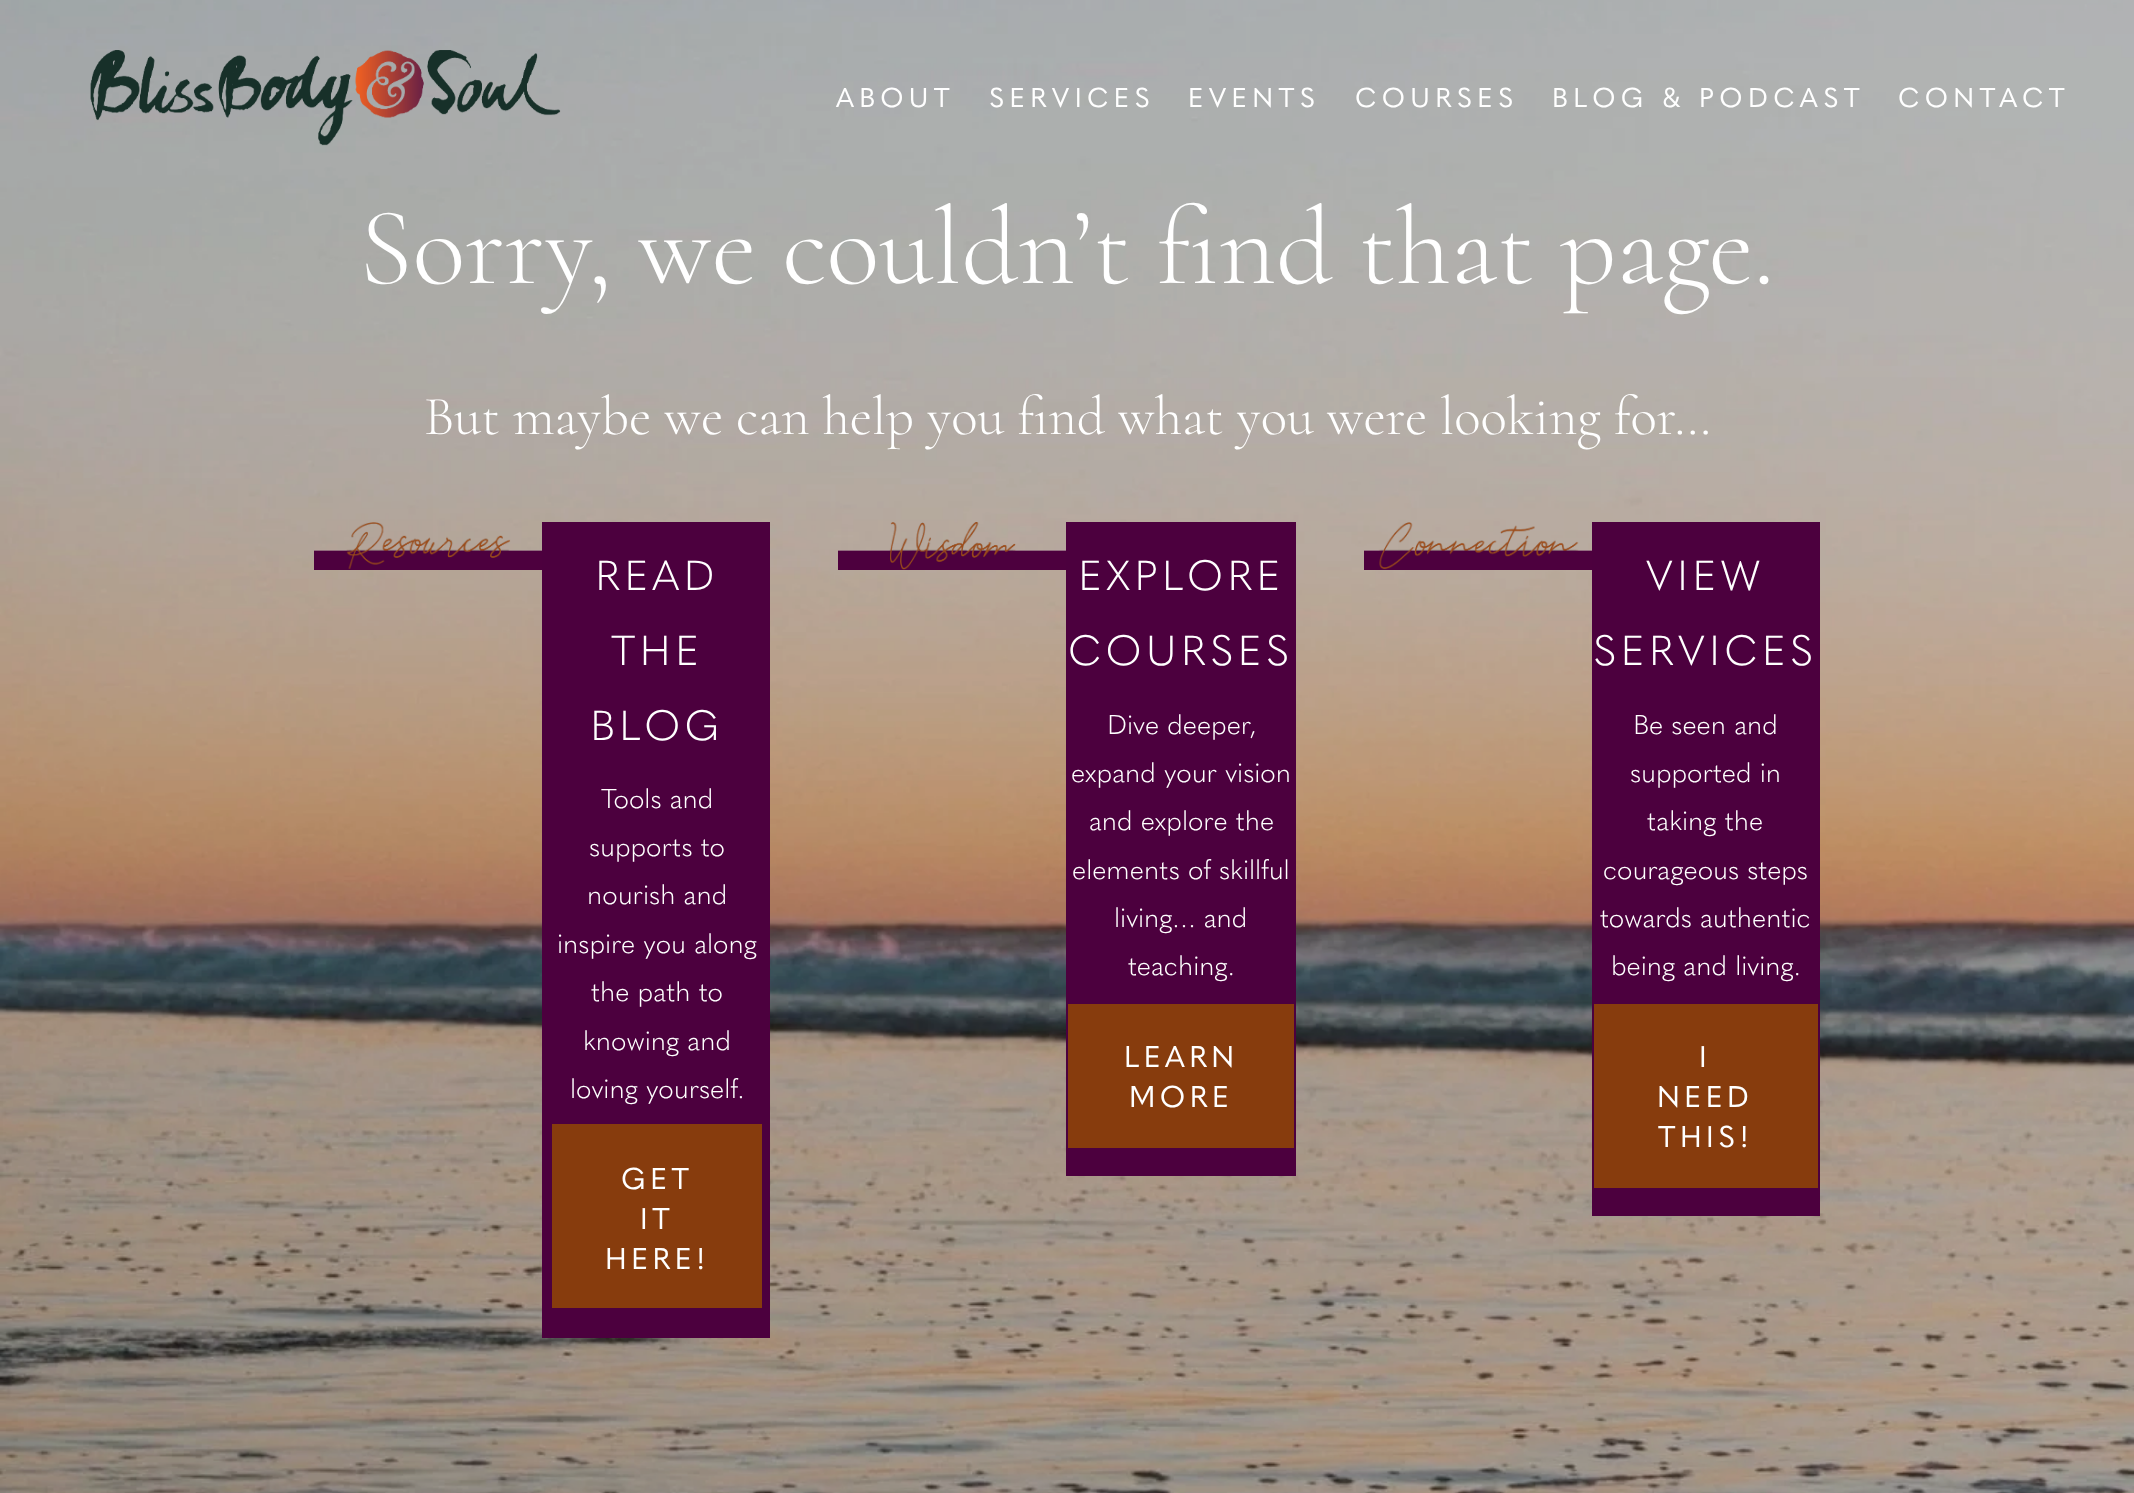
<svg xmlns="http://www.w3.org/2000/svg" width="2134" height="1493">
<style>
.a{font:26.9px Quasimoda;letter-spacing:5.4px;fill:#fff}
.b{font:300 110.4px Cormorant;fill:#fff}
.c{font:300 55.05px Cormorant;fill:#fff}
.d{font:300 41.5px Quasimoda;letter-spacing:4.25px;fill:#fff}
.e{font:300 26.9px Quasimoda;fill:#fff}
.f{font:29.5px Quasimoda;letter-spacing:4.5px;fill:#fff}
</style>
<rect width="100%" height="100%" fill="#fff"/>
<image href="2.png" x="0" y="0" width="2134" height="1493"/>
<image href="1.png" x="90" y="50" width="471" height="96"/>
<image href="3.png" x="314" y="522" width="228" height="48"/>
<path fill="#4c003e" d="M542 522h228v816H542z"/>
<path fill="#873c0d" d="M552 1124h210v184H552z"/>
<image href="4.png" x="838" y="522" width="228" height="48"/>
<path fill="#4c003e" d="M1066 522h230v654H1066z"/>
<path fill="#873c0d" d="M1068 1004h226v144H1068z"/>
<image href="5.png" x="1364" y="522" width="228" height="48"/>
<path fill="#4c003e" d="M1592 522h228v694H1592z"/>
<path fill="#873c0d" d="M1594 1004h224v184H1594z"/>
<text class="a" x="836" y="107">ABOUT</text>
<text class="a" x="989" y="107">SERVICES</text>
<text class="a" x="1188" y="107">EVENTS</text>
<text class="a" x="1355" y="107">COURSES</text>
<text class="a" x="1552" y="107">BLOG &amp; PODCAST</text>
<text class="a" x="1898" y="107">CONTACT</text>
<text class="b" x="359" y="283">Sorry, we couldn’t find that page.</text>
<text class="c" x="424" y="434">But maybe we can help you find what you were looking for…</text>
<text class="d" x="595" y="590">READ</text>
<text class="d" x="611" y="665">THE</text>
<text class="d" x="590" y="740">BLOG</text>
<text class="e" x="601" y="808">Tools and</text>
<text class="e" x="589" y="856">supports to</text>
<text class="e" x="587" y="904">nourish and</text>
<text class="e" x="557" y="953">inspire you along</text>
<text class="e" x="591" y="1001">the path to</text>
<text class="e" x="583" y="1050">knowing and</text>
<text class="e" x="570" y="1098">loving yourself.</text>
<text class="f" x="621" y="1189">GET</text>
<text class="f" x="640" y="1229">IT</text>
<text class="f" x="605" y="1269">HERE!</text>
<text class="d" x="1078" y="590">EXPLORE</text>
<text class="d" x="1068" y="665">COURSES</text>
<text class="e" x="1107" y="734">Dive deeper,</text>
<text class="e" x="1071" y="782">expand your vision</text>
<text class="e" x="1089" y="830">and explore the</text>
<text class="e" x="1072" y="879">elements of skillful</text>
<text class="e" x="1114" y="927">living… and</text>
<text class="e" x="1128" y="975">teaching.</text>
<text class="f" x="1124" y="1067">LEARN</text>
<text class="f" x="1129" y="1107">MORE</text>
<text class="d" x="1646" y="590">VIEW</text>
<text class="d" x="1593" y="665">SERVICES</text>
<text class="e" x="1633" y="734">Be seen and</text>
<text class="e" x="1630" y="782">supported in</text>
<text class="e" x="1647" y="830">taking the</text>
<text class="e" x="1603" y="879">courageous steps</text>
<text class="e" x="1600" y="927">towards authentic</text>
<text class="e" x="1611" y="975">being and living.</text>
<text class="f" x="1699" y="1067">I</text>
<text class="f" x="1657" y="1107">NEED</text>
<text class="f" x="1658" y="1147">THIS!</text>
</svg>
